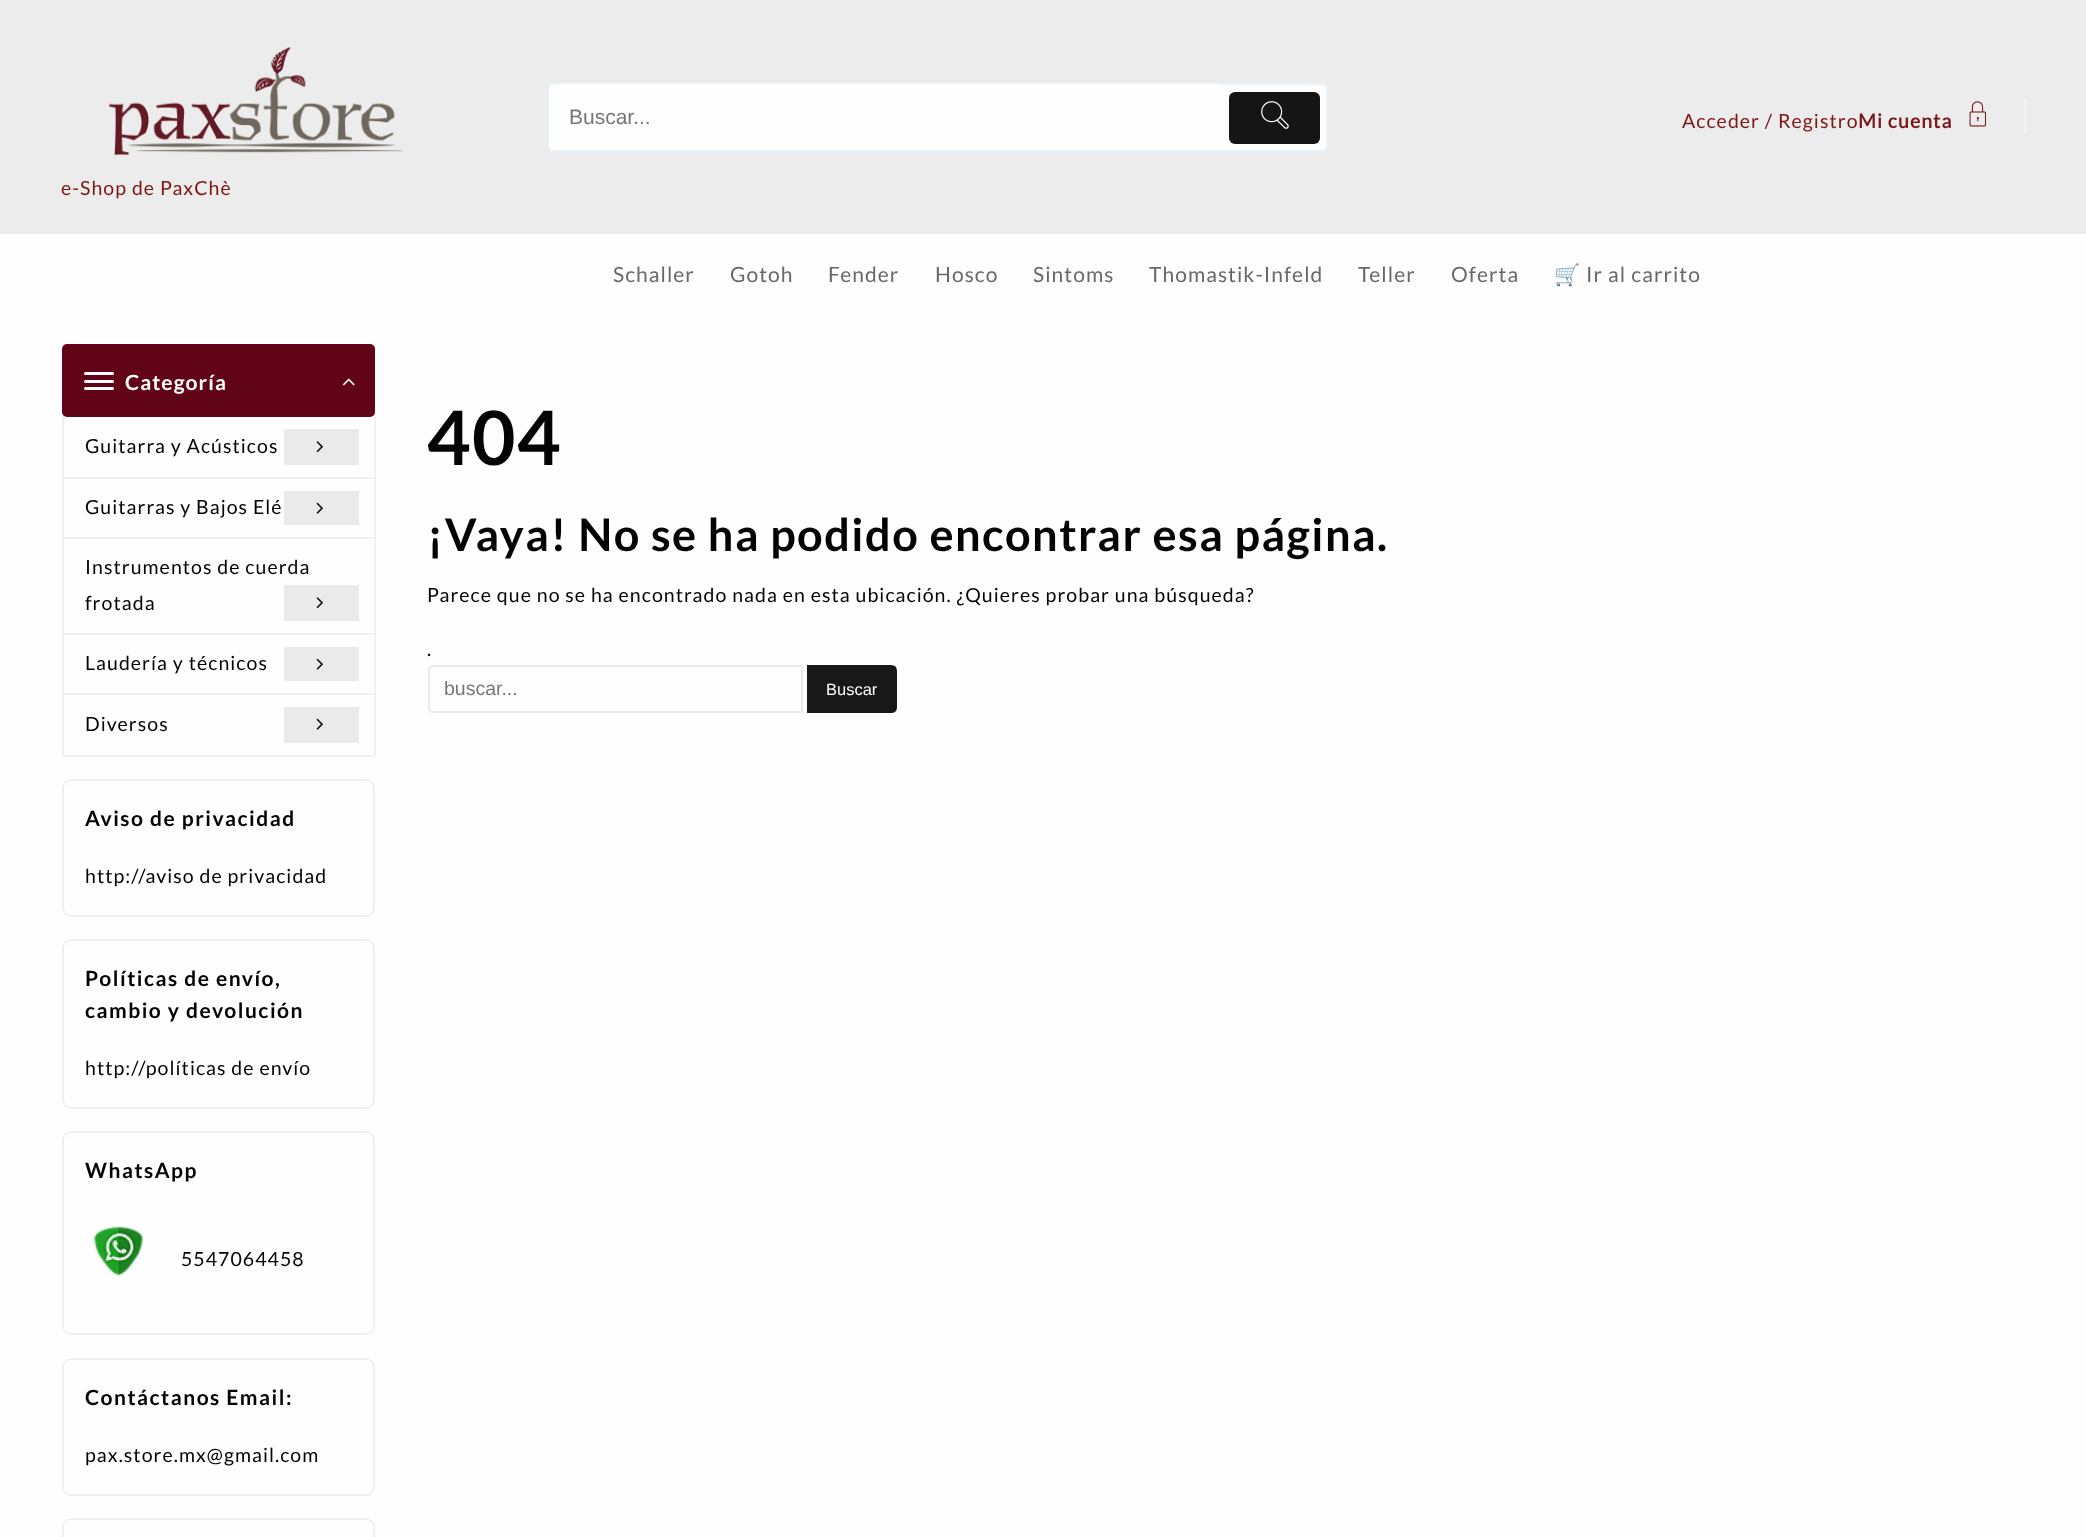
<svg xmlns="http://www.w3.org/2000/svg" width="2086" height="1537">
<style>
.a{font:21px Liberation Sans;fill:#777}
.b{font:19.5px Lato;letter-spacing:1.05px;fill:#7c1616}
.c{font:bold 19.5px Lato;letter-spacing:1.05px;fill:#7c1616}
.d{font:21px Lato;letter-spacing:1.05px;fill:#686868}
.e{font:21px Noto Color Emoji;letter-spacing:1.05px;fill:#686868}
.f{font:bold 21px 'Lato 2';letter-spacing:1.05px;fill:#fefefe}
.g{font:19.5px Lato;letter-spacing:1.05px;fill:#040404}
.h{font:bold 21px 'Lato 2';letter-spacing:1.5px;fill:#040404}
.i{font:bold 75px 'Lato 2';letter-spacing:1.5px;fill:#040404}
.j{font:bold 45px 'Lato 2';letter-spacing:1.5px;fill:#040404}
.k{font:19.5px Liberation Sans;fill:#777}
.l{font:16.5px Liberation Sans;fill:#fefefe}
</style>
<rect width="100%" height="100%" fill="#fefefe"/>
<path fill="#edeced" d="M0 0h2086v234H0z"/>
<rect fill="#fefefe" stroke="#e7f4fe" stroke-width="2" x="549" y="84" width="778" height="67" rx="5"/>
<rect fill="#fefefe" x="549" y="84" width="674" height="66" rx="6"/>
<rect fill="#151515" x="1229" y="92" width="91" height="52" rx="6"/>
<image href="1.png" x="1261" y="101" width="28" height="28"/>
<image href="2.png" x="1969" y="101" width="18" height="26"/>
<path fill="#f2f2f2" d="M2024 98h2v36H2024z"/>
<image href="3.png" x="109" y="47" width="294" height="109"/>
<rect fill="#620417" x="62" y="344" width="313" height="73" rx="5"/>
<rect fill="#fefefe" x="84" y="372" width="30" height="3" rx="1.5"/>
<rect fill="#fefefe" x="84" y="380" width="30" height="3" rx="1.5"/>
<rect fill="#fefefe" x="84" y="387" width="30" height="3" rx="1.5"/>
<image href="4.png" x="342" y="378" width="13" height="8"/>
<path fill="#f0f0f1" d="M374 417h2v339H374z"/>
<path fill="#f0f0f1" d="M62 755h313v2H62z"/>
<path fill="#f0f0f1" d="M62 417h2v339H62z"/>
<path fill="#f0f0f1" d="M63 477h311v2H63z"/>
<path fill="#eaeaea" d="M284 429h75v36H284z"/>
<image href="5.png" x="316" y="441" width="7" height="12"/>
<path fill="#f0f0f1" d="M63 537h311v2H63z"/>
<path fill="#eaeaea" d="M284 491h75v34H284z"/>
<image href="6.png" x="316" y="502" width="7" height="12"/>
<path fill="#f0f0f1" d="M63 633h311v2H63z"/>
<path fill="#eaeaea" d="M284 585h75v36H284z"/>
<image href="5.png" x="316" y="597" width="7" height="12"/>
<path fill="#f0f0f1" d="M63 693h311v2H63z"/>
<path fill="#eaeaea" d="M284 647h75v34H284z"/>
<image href="6.png" x="316" y="658" width="7" height="12"/>
<path fill="#eaeaea" d="M284 707h75v36H284z"/>
<image href="6.png" x="316" y="718" width="7" height="12"/>
<rect fill="none" stroke="#f0f0f1" stroke-width="2" x="63" y="780" width="311" height="136" rx="8"/>
<rect fill="none" stroke="#f0f0f1" stroke-width="2" x="63" y="940" width="311" height="168" rx="8"/>
<rect fill="none" stroke="#f0f0f1" stroke-width="2" x="63" y="1132" width="311" height="202" rx="8"/>
<image href="7.png" x="94" y="1226" width="49" height="50"/>
<rect fill="none" stroke="#f0f0f1" stroke-width="2" x="63" y="1359" width="311" height="136" rx="8"/>
<rect fill="none" stroke="#f0f0f1" stroke-width="2" x="63" y="1519" width="311" height="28" rx="8"/>
<path fill="none" stroke="#eaeaea" stroke-width="2" d="M433 666h369v46h-369c-2 0-4-2-4-4v-38c0-2 2-4 4-4z"/>
<path fill="#181819" stroke="#181819" stroke-width="2" d="M808 666h83c3 0 5 2 5 5v36c0 3-2 5-5 5h-83z"/>
<text class="a" x="569" y="124">Buscar...</text>
<text class="b" x="1682" y="128">Acceder / Registro</text>
<text class="c" x="1858" y="128">Mi cuenta</text>
<text class="b" x="61" y="195">e-Shop de PaxChè</text>
<text class="d" x="613" y="282">Schaller</text>
<text class="d" x="730" y="282">Gotoh</text>
<text class="d" x="828" y="282">Fender</text>
<text class="d" x="935" y="282">Hosco</text>
<text class="d" x="1033" y="282">Sintoms</text>
<text class="d" x="1149" y="282">Thomastik-Infeld</text>
<text class="d" x="1358" y="282">Teller</text>
<text class="d" x="1451" y="282">Oferta</text>
<text class="e" x="1554" y="282">🛒</text>
<text class="d" x="1586" y="282">Ir al carrito</text>
<text class="f" x="125" y="390">Categoría</text>
<text class="g" x="85" y="453">Guitarra y Acústicos</text>
<text class="g" x="85" y="514">Guitarras y Bajos Elé</text>
<text class="g" x="85" y="574">Instrumentos de cuerda</text>
<text class="g" x="85" y="610">frotada</text>
<text class="g" x="85" y="670">Laudería y técnicos</text>
<text class="g" x="85" y="731">Diversos</text>
<text class="h" x="85" y="826">Aviso de privacidad</text>
<text class="g" x="85" y="883">http://aviso de privacidad</text>
<text class="h" x="85" y="986">Políticas de envío,</text>
<text class="h" x="85" y="1018">cambio y devolución</text>
<text class="g" x="85" y="1075">http://políticas de envío</text>
<text class="h" x="85" y="1178">WhatsApp</text>
<text class="g" x="181" y="1266">5547064458</text>
<text class="h" x="85" y="1405">Contáctanos Email:</text>
<text class="g" x="85" y="1462">pax.store.mx@gmail.com</text>
<text class="i" x="427" y="465">404</text>
<text class="j" x="427" y="551">¡Vaya! No se ha podido encontrar esa página.</text>
<text class="g" x="427" y="602">Parece que no se ha encontrado nada en esta ubicación. ¿Quieres probar una búsqueda?</text>
<text class="g" x="427" y="656">.</text>
<text class="k" x="444" y="695">buscar...</text>
<text class="l" x="826" y="695">Buscar</text>
</svg>
